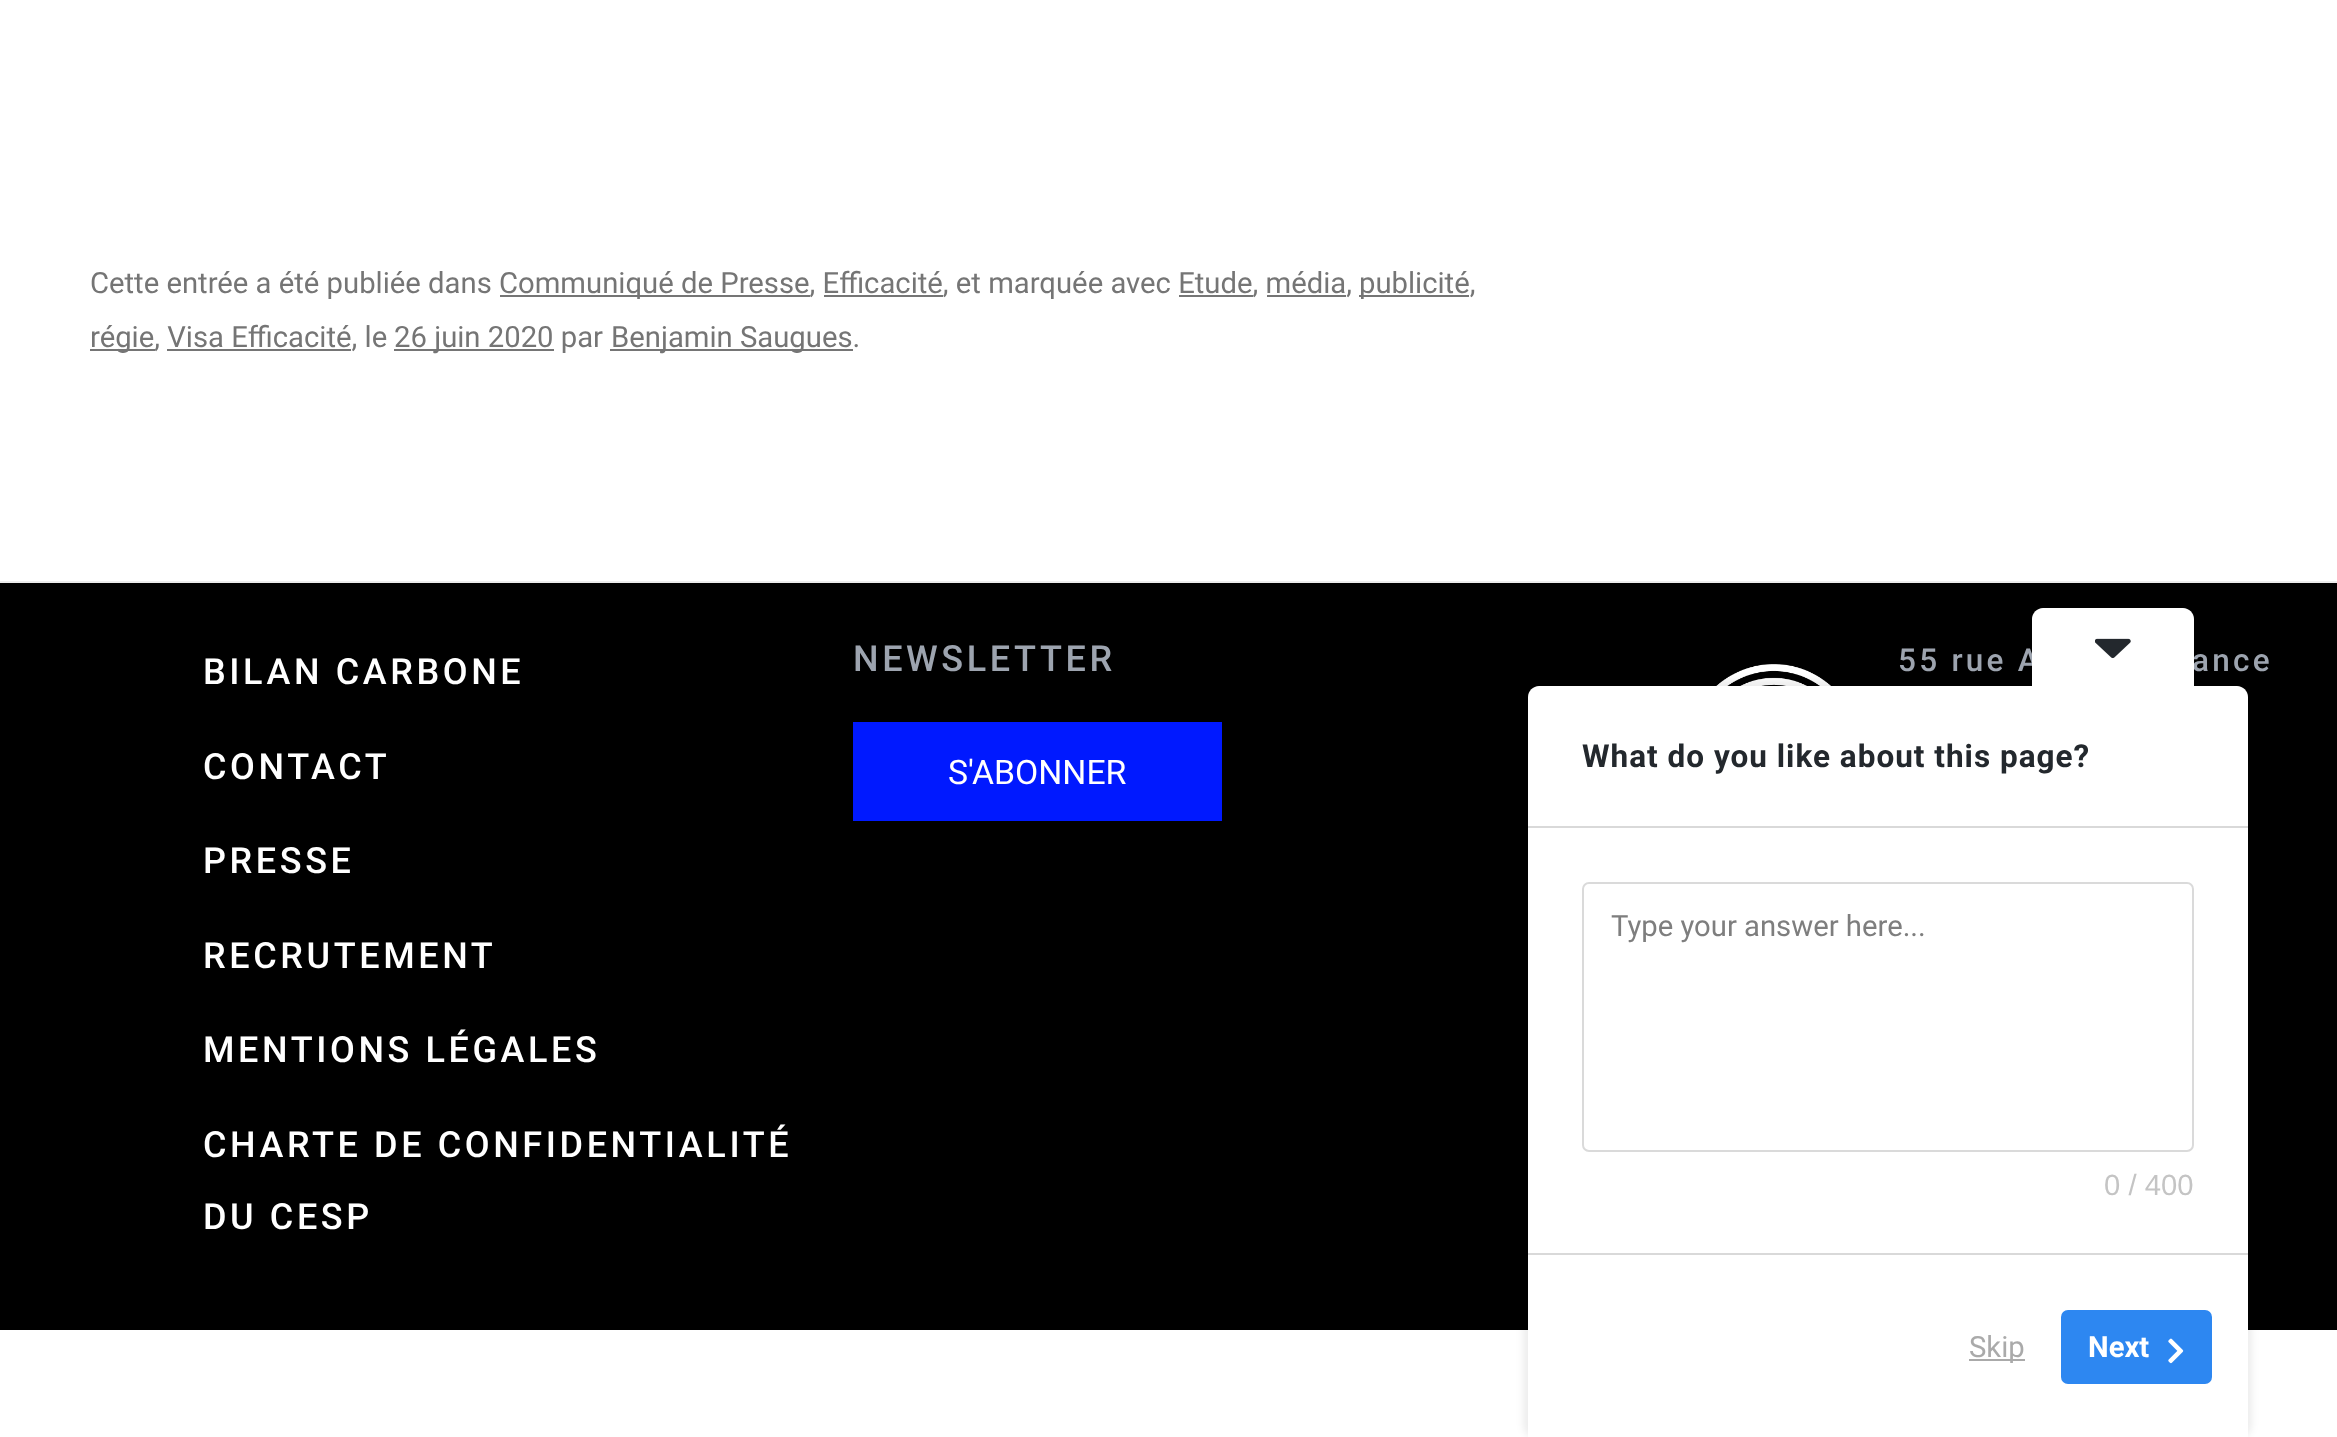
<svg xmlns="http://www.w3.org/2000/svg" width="2337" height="1437">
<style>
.a{font:29.25px Roboto;fill:#757575}
.b{font:500 36px Roboto;letter-spacing:3.6px;fill:#fff}
.c{font:500 36px Roboto;letter-spacing:3.6px;fill:#9da4af}
.d{font:33.75px Roboto;fill:#fff}
.e{font:500 31.5px Roboto;letter-spacing:3.25px;fill:#9da4af}
.f{font:bold 31.5px Roboto;letter-spacing:1px;fill:#23282d}
.g{font:29.25px Roboto;fill:#7e7e7e}
.h{font:29.25px Liberation Sans;fill:#c4c4c4}
.i{font:29.25px Roboto;fill:#aaa}
.j{font:bold 29.25px Roboto;fill:#fff}
</style>
<defs>
<clipPath id="clip1"><path d="M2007.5 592h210.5l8 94h-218.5z"/></clipPath>
</defs>
<rect width="100%" height="100%" fill="#fff"/>
<path fill="#757575" d="M500 295h310v2H500z"/>
<path fill="#757575" d="M1359 295h110v2H1359z"/>
<path fill="#757575" d="M824 295h119v2H824z"/>
<path fill="#757575" d="M1179 295h74v2H1179z"/>
<path fill="#757575" d="M1267 295h79v2H1267z"/>
<path fill="#757575" d="M90 349h65v2H90z"/>
<path fill="#757575" d="M394 349h160v2H394z"/>
<path fill="#757575" d="M610 349h243v2H610z"/>
<path fill="#757575" d="M167 349h184v2H167z"/>
<path fill="#000" d="M0 583h2337v747H0z"/>
<path fill="#ededed" d="M0 581h2337v2H0z"/>
<path fill="#0019ff" d="M853 722h369v99H853z"/>
<image href="1.png" x="1716" y="664" width="115" height="22"/>
<rect fill="#00000012" filter="blur(3.5px)" x="1523" y="680" width="729" height="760" rx="16"/>
<path fill="#fff" d="M1539 686h698c6 0 11 5 11 11v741h-720v-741c0-6 5-11 11-11z"/>
<g clip-path="url(#clip1)">
<rect fill="#00000012" filter="blur(3.5px)" x="2027" y="601" width="171" height="88" rx="16"/>
</g>
<path fill="#d9d9d9" d="M1528 826h720v2H1528z"/>
<path fill="#d9d9d9" d="M1528 1253h720v2H1528z"/>
<rect fill="none" stroke="#dadada" stroke-width="2" x="1583" y="883" width="610" height="268" rx="6"/>
<path fill="#aaa" d="M1969 1359h56v2H1969z"/>
<rect fill="#2d87f1" x="2061" y="1310" width="151" height="74" rx="7"/>
<image href="3.png" x="2168" y="1338" width="16" height="26"/>
<text class="a" x="90" y="293">Cette entrée a été publiée dans</text>
<text class="a" x="499" y="293">Communiqué de Presse, Efficacité, et marquée avec Etude, média,</text>
<text class="a" x="1359" y="293">publicité,</text>
<text class="a" x="90" y="347">régie, Visa Efficacité, le</text>
<text class="a" x="394" y="347">26 juin 2020 par</text>
<text class="a" x="611" y="347">Benjamin Saugues.</text>
<text class="b" x="203" y="684">BILAN CARBONE</text>
<text class="b" x="203" y="779">CONTACT</text>
<text class="b" x="203" y="873">PRESSE</text>
<text class="b" x="203" y="968">RECRUTEMENT</text>
<text class="b" x="203" y="1062">MENTIONS LÉGALES</text>
<text class="b" x="203" y="1157">CHARTE DE CONFIDENTIALITÉ</text>
<text class="b" x="203" y="1229">DU CESP</text>
<text class="c" x="853" y="671">NEWSLETTER</text>
<text class="d" x="948" y="784">S'ABONNER</text>
<text class="e" x="1898" y="671">55 rue A</text>
<text class="e" x="2192" y="671">ance</text>
<path fill="#fff" d="M2043 608h140c6 0 11 5 11 11v67h-162v-67c0-6 5-11 11-11z"/>
<image href="2.png" x="2095" y="638" width="36" height="21"/>
<text class="f" x="1582" y="767">What do you like about this page?</text>
<text class="g" x="1611" y="936">Type your answer here...</text>
<text class="h" x="2104" y="1195">0 / 400</text>
<text class="i" x="1969" y="1357">Skip</text>
<text class="j" x="2088" y="1357">Next</text>
</svg>
